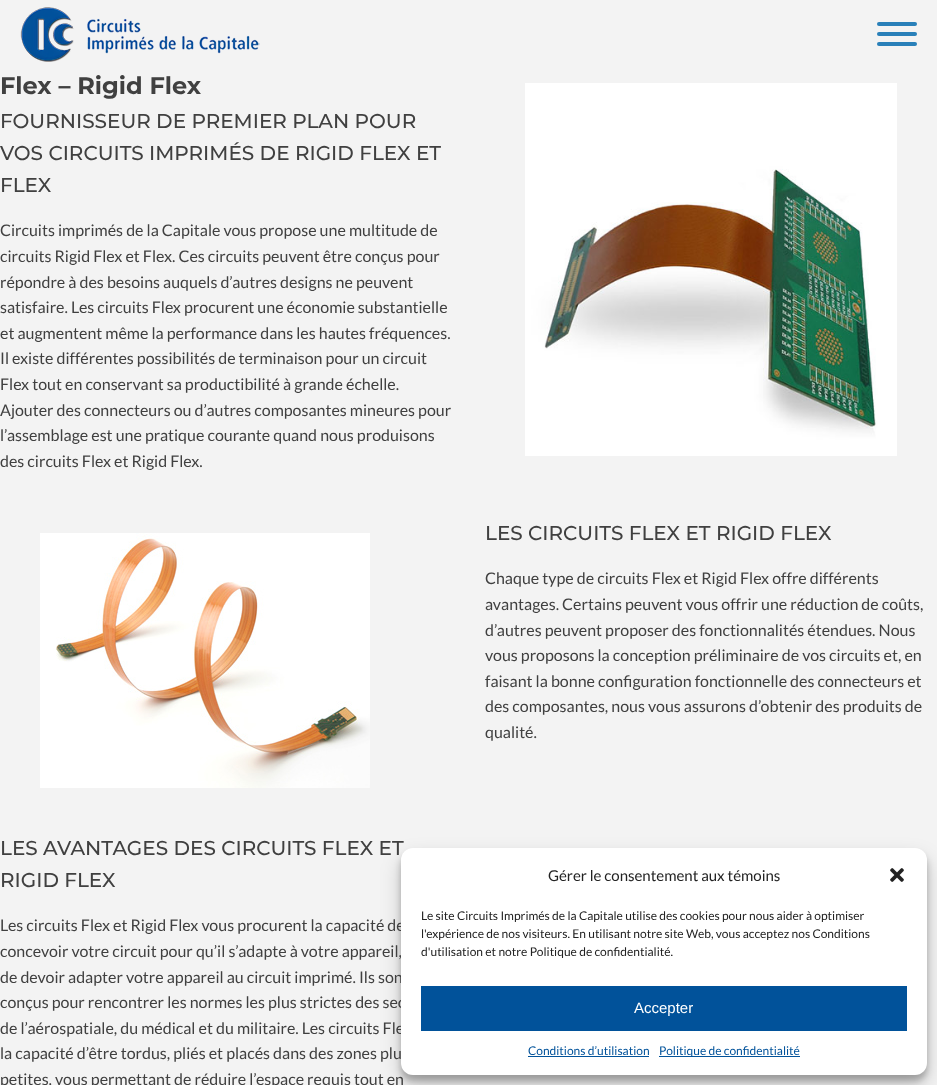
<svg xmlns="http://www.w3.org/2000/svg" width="937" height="1085">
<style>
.a{font:bold 24px Montserrat;fill:#404040}
.b{font:500 20px Montserrat;fill:#404040}
.c{font:16px Lato;fill:#404040}
.d{font:15px Lato;fill:#222}
.e{font:12px Lato;fill:#222}
.f{font:15px Liberation Sans;fill:#fff}
.g{font:12px Lato;fill:#01529a}
</style>
<rect width="100%" height="100%" fill="#f3f3f3"/>
<image href="1.png" x="20" y="7" width="240" height="55"/>
<rect fill="#2980b9" x="877" y="22" width="40" height="4" rx="2"/>
<rect fill="#2980b9" x="877" y="32" width="40" height="4" rx="2"/>
<rect fill="#2980b9" x="877" y="42" width="40" height="4" rx="2"/>
<image href="2.png" x="525" y="83" width="372" height="373"/>
<image href="3.png" x="40" y="533" width="330" height="255"/>
<rect fill="#0000003b" filter="blur(3px)" x="401" y="854" width="526" height="227" rx="12"/>
<rect fill="#00000030" filter="blur(10px)" x="401" y="858" width="526" height="227" rx="12"/>
<text class="a" x="0" y="94">Flex – Rigid Flex</text>
<text class="b" x="0" y="128">FOURNISSEUR DE PREMIER PLAN POUR</text>
<text class="b" x="0" y="160">VOS CIRCUITS IMPRIMÉS DE RIGID FLEX ET</text>
<text class="b" x="0" y="192">FLEX</text>
<text class="c" x="0" y="236">Circuits imprimés de la Capitale vous propose une multitude de</text>
<text class="c" x="0" y="262">circuits Rigid Flex et Flex. Ces circuits peuvent être conçus pour</text>
<text class="c" x="0" y="288">répondre à des besoins auquels d’autres designs ne peuvent</text>
<text class="c" x="0" y="313">satisfaire. Les circuits Flex procurent une économie substantielle</text>
<text class="c" x="0" y="339">et augmentent même la performance dans les hautes fréquences.</text>
<text class="c" x="0" y="364">Il existe différentes possibilités de terminaison pour un circuit</text>
<text class="c" x="0" y="390">Flex tout en conservant sa productibilité à grande échelle.</text>
<text class="c" x="0" y="416">Ajouter des connecteurs ou d’autres composantes mineures pour</text>
<text class="c" x="0" y="441">l’assemblage est une pratique courante quand nous produisons</text>
<text class="c" x="0" y="467">des circuits Flex et Rigid Flex.</text>
<text class="b" x="485" y="540">LES CIRCUITS FLEX ET RIGID FLEX</text>
<text class="c" x="485" y="584">Chaque type de circuits Flex et Rigid Flex offre différents</text>
<text class="c" x="485" y="610">avantages. Certains peuvent vous offrir une réduction de coûts,</text>
<text class="c" x="485" y="636">d’autres peuvent proposer des fonctionnalités étendues. Nous</text>
<text class="c" x="485" y="661">vous proposons la conception préliminaire de vos circuits et, en</text>
<text class="c" x="485" y="687">faisant la bonne configuration fonctionnelle des connecteurs et</text>
<text class="c" x="485" y="712">des composantes, nous vous assurons d’obtenir des produits de</text>
<text class="c" x="485" y="738">qualité.</text>
<text class="b" x="0" y="855">LES AVANTAGES DES CIRCUITS FLEX ET</text>
<text class="b" x="0" y="887">RIGID FLEX</text>
<text class="c" x="0" y="931">Les circuits Flex et Rigid Flex vous procurent la capacité de</text>
<text class="c" x="0" y="957">concevoir votre circuit pour qu’il s’adapte à votre appareil,</text>
<text class="c" x="0" y="983">de devoir adapter votre appareil au circuit imprimé. Ils son</text>
<text class="c" x="0" y="1008">conçus pour rencontrer les normes les plus strictes des sec</text>
<text class="c" x="0" y="1034">de l’aérospatiale, du médical et du militaire. Les circuits Fle</text>
<text class="c" x="0" y="1059">la capacité d’être tordus, pliés et placés dans des zones plu</text>
<text class="c" x="0" y="1085">petites, vous permettant de réduire l’espace requis tout en</text>
<rect fill="#fff" x="401" y="848" width="526" height="227" rx="12"/>
<text class="d" x="548" y="881">Gérer le consentement aux témoins</text>
<image href="4.png" x="890" y="868" width="14" height="14"/>
<text class="e" x="421" y="920">Le site Circuits Imprimés de la Capitale utilise des cookies pour nous aider à optimiser</text>
<text class="e" x="421" y="938">l'expérience de nos visiteurs. En utilisant notre site Web, vous acceptez nos Conditions</text>
<text class="e" x="421" y="956">d'utilisation et notre Politique de confidentialité.</text>
<path fill="#01529a" d="M421 986h486v45H421z"/>
<text class="f" x="634" y="1013">Accepter</text>
<text class="g" x="528" y="1055">Conditions d’utilisation</text>
<path fill="#01529a" d="M528 1056h121v1H528z"/>
<path fill="#01529a" d="M659 1056h141v1H659z"/>
<text class="g" x="659" y="1055">Politique de confidentialité</text>
</svg>
